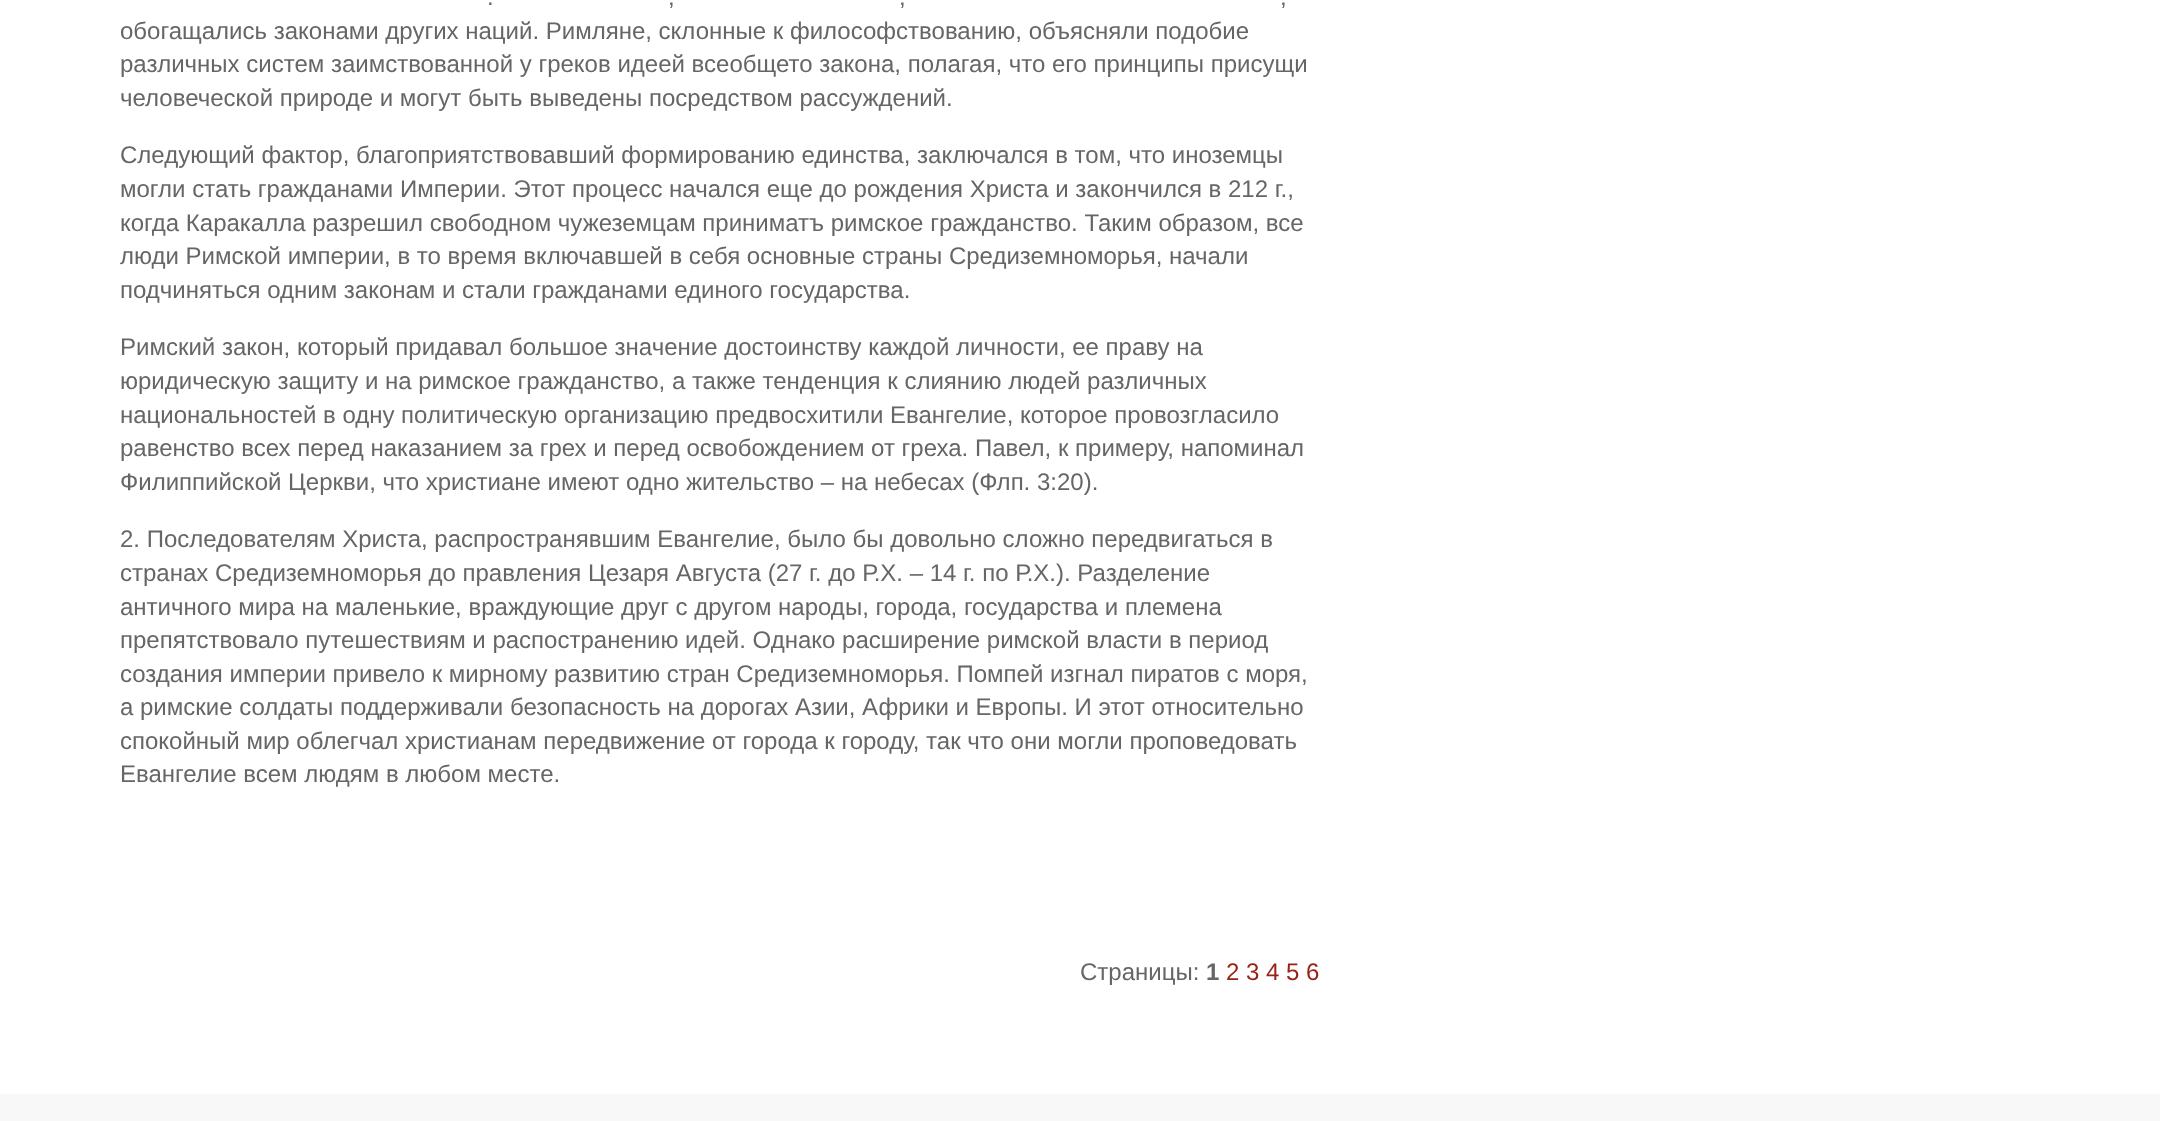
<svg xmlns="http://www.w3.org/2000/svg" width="2160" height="1121">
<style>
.a{font:24px Liberation Sans;fill:#666}
.b{font:bold 24px Liberation Sans;fill:#666}
.c{font:24px Liberation Sans;fill:#982216}
</style>
<rect width="100%" height="100%" fill="#fff"/>
<path fill="#f8f8f8" d="M0 1094h2160v27H0z"/>
<text class="a" x="487" y="5">.</text>
<text class="a" x="668" y="5">,</text>
<text class="a" x="899" y="5">,</text>
<text class="a" x="1280" y="5">,</text>
<text class="a" x="120" y="39">обогащались законами других наций. Римляне, склонные к философствованию, объясняли подобие</text>
<text class="a" x="120" y="72">различных систем заимствованной у греков идеей всеобщето закона, полагая, что его принципы присущи</text>
<text class="a" x="120" y="106">человеческой природе и могут быть выведены посредством рассуждений.</text>
<text class="a" x="120" y="163">Следующий фактор, благоприятствовавший формированию единства, заключался в том, что иноземцы</text>
<text class="a" x="120" y="197">могли стать гражданами Империи. Этот процесс начался еще до рождения Христа и закончился в 212 г.,</text>
<text class="a" x="120" y="231">когда Каракалла разрешил свободном чужеземцам приниматъ римское гражданство. Таким образом, все</text>
<text class="a" x="120" y="264">люди Римской империи, в то время включавшей в себя основные страны Средиземноморья, начали</text>
<text class="a" x="120" y="298">подчиняться одним законам и стали гражданами единого государства.</text>
<text class="a" x="120" y="355">Римский закон, который придавал большое значение достоинству каждой личности, ее праву на</text>
<text class="a" x="120" y="389">юридическую защиту и на римское гражданство, а также тенденция к слиянию людей различных</text>
<text class="a" x="120" y="423">национальностей в одну политическую организацию предвосхитили Евангелие, которое провозгласило</text>
<text class="a" x="120" y="456">равенство всех перед наказанием за грех и перед освобождением от греха. Павел, к примеру, напоминал</text>
<text class="a" x="120" y="490">Филиппийской Церкви, что христиане имеют одно жительство – на небесах (Флп. 3:20).</text>
<text class="a" x="120" y="547">2. Последователям Христа, распространявшим Евангелие, было бы довольно сложно передвигаться в</text>
<text class="a" x="120" y="581">странах Средиземноморья до правления Цезаря Августа (27 г. до Р.Х. – 14 г. по Р.Х.). Разделение</text>
<text class="a" x="120" y="615">античного мира на маленькие, враждующие друг с другом народы, города, государства и племена</text>
<text class="a" x="120" y="648">препятствовало путешествиям и распостранению идей. Однако расширение римской власти в период</text>
<text class="a" x="120" y="682">создания империи привело к мирному развитию стран Средиземноморья. Помпей изгнал пиратов с моря,</text>
<text class="a" x="120" y="715">а римские солдаты поддерживали безопасность на дорогах Азии, Африки и Европы. И этот относительно</text>
<text class="a" x="120" y="749">спокойный мир облегчал христианам передвижение от города к городу, так что они могли проповедовать</text>
<text class="a" x="120" y="782">Евангелие всем людям в любом месте.</text>
<text class="a" x="1080" y="980">Страницы:</text>
<text class="b" x="1206" y="980">1</text>
<text class="c" x="1226" y="980">2 3 4 5 6</text>
</svg>
